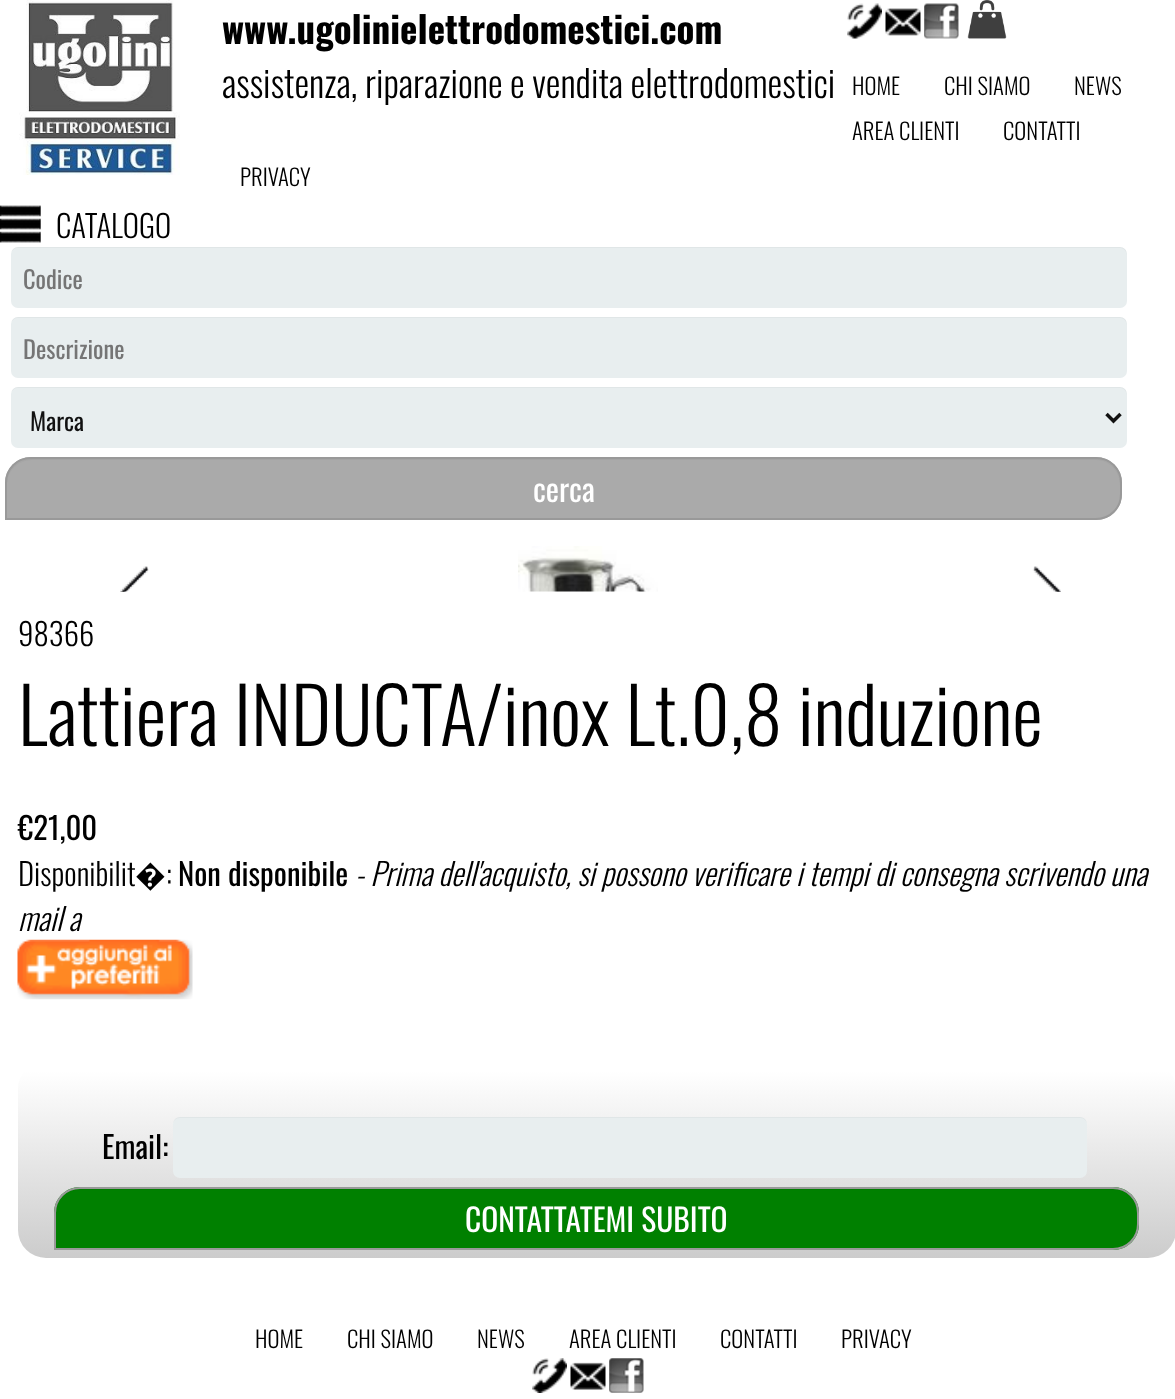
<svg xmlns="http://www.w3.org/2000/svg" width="1175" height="1399">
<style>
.a{font:bold 37px Oswald;fill:#000}
.b{font:300 37px Oswald;fill:#000}
.c{font:300 22.75px Oswald;fill:#000}
.d{font:300 30.8px Oswald;fill:#000}
.e{font:24.5px Oswald;fill:#757575}
.f{font:24.5px Oswald;fill:#111}
.g{font:31.5px Oswald;fill:#fff}
.h{font:300 77px Oswald;fill:#000}
.i{font:30.8px Oswald;fill:#000}
.j{font:300 30.8px Noto Sans;fill:#000}
.k{font:italic 300 30.8px Oswald;fill:#000}
</style>
<defs>
<linearGradient id="g1" gradientUnits="userSpaceOnUse" x1="18" y1="1061" x2="18" y2="1258"><stop offset="0.05" stop-color="#fff"/><stop offset="1" stop-color="#ccc"/></linearGradient>
</defs>
<rect width="100%" height="100%" fill="#fff"/>
<image href="1.png" x="19" y="0" width="161" height="175"/>
<image href="2.png" x="847" y="3" width="35" height="36"/>
<image href="3.png" x="885" y="8" width="36" height="28"/>
<image href="4.png" x="924" y="3" width="35" height="36"/>
<image href="5.png" x="967" y="0" width="40" height="39"/>
<image href="6.png" x="0" y="205" width="41" height="38"/>
<rect fill="#e8eeef" x="11" y="247" width="1116" height="61" rx="7"/>
<path fill="#00000008" d="M18 248h1102c4 0 7 4 7 8v-2c0-4-3-7-7-7h-1102c-3 0-6 2-7 5c2-2 4-4 7-4z"/>
<rect fill="#e8eeef" x="11" y="317" width="1116" height="61" rx="7"/>
<path fill="#00000008" d="M18 318h1102c4 0 7 4 7 8v-2c0-4-3-7-7-7h-1102c-3 0-6 2-7 5c2-2 4-4 7-4z"/>
<rect fill="#e8eeef" x="11" y="387" width="1116" height="61" rx="7"/>
<path fill="#00000008" d="M18 388h1102c4 0 7 4 7 8v-2c0-4-3-7-7-7h-1102c-3 0-6 2-7 5c2-2 4-4 7-4z"/>
<path fill="none" stroke="#111" stroke-width="3.5" d="M1106.5 414l7 7l7-7"/>
<path fill="#aaa" d="M31 457h1065c14.5 0 26 11.5 26 26v11c0 14.5-11.5 26-26 26h-1091v-37c0-14.5 11.5-26 26-26z"/>
<path fill="#a5a5a5" d="M32 460h1064c13 0 24 11 24 25v-1c0-14-11-25-25-25h-1063c-14 0-25 11-25 25v1c0-14 11-25 25-25z"/>
<path fill="none" stroke="#999" stroke-width="2" d="M31 458h1065c14 0 25 11 25 25v11c0 14-11 25-25 25h-1090v-36c0-14 11-25 25-25z"/>
<image href="7.png" x="120" y="566" width="29" height="26"/>
<image href="8.png" x="518" y="546" width="140" height="46"/>
<image href="9.png" x="120" y="566" width="29" height="26"/>
<image href="10.png" x="120" y="566" width="29" height="26"/>
<image href="11.png" x="1032" y="566" width="29" height="26"/>
<image href="12.png" x="1033" y="566" width="28" height="26"/>
<image href="13.png" x="1034" y="566" width="27" height="26"/>
<image href="14.png" x="17" y="939" width="176" height="61"/>
<rect fill="url(#g1)" x="18" y="1061" width="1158" height="197" rx="28"/>
<rect fill="#e8eeef" x="173" y="1117" width="914" height="61" rx="7"/>
<path fill="#00000008" d="M180 1118h900c4 0 7 3 7 7c0-4-2-8-7-8h-900c-5 0-7 4-7 8c0-4 3-7 7-7z"/>
<path fill="#008000" d="M80 1187h1033c14.5 0 26 11.5 26 26v11c0 14.5-11.5 26-26 26h-1059v-37c0-14.5 11.5-26 26-26z"/>
<path fill="#007c00" d="M80 1190h1033c14 0 25 11 25 24v-1c0-14-11-25-25-25h-1032c-14 0-25 11-25 25v1c0-13 11-24 24-24z"/>
<path fill="none" stroke="#999" stroke-width="2" d="M80 1188h1033c14 0 25 11 25 25v11c0 14-11 25-25 25h-1058v-36c0-14 11-25 25-25z"/>
<image href="15.png" x="532" y="1358" width="35" height="35"/>
<image href="16.png" x="570" y="1362" width="36" height="28"/>
<image href="17.png" x="609" y="1358" width="35" height="35"/>
<text class="a" x="222" y="44">www.ugolinielettrodomestici.com</text>
<text class="b" x="222" y="98">assistenza, riparazione e vendita elettrodomestici</text>
<text class="c" x="852" y="95">HOME</text>
<text class="c" x="944" y="95">CHI SIAMO</text>
<text class="c" x="1074" y="95">NEWS</text>
<text class="c" x="852" y="140">AREA CLIENTI</text>
<text class="c" x="1003" y="140">CONTATTI</text>
<text class="c" x="240" y="186">PRIVACY</text>
<text class="d" x="56" y="238">CATALOGO</text>
<text class="e" x="23" y="289">Codice</text>
<text class="e" x="23" y="359">Descrizione</text>
<text class="f" x="30" y="431">Marca</text>
<text class="g" x="533" y="502">cerca</text>
<text class="d" x="18" y="646">98366</text>
<text class="h" x="18" y="746">Lattiera INDUCTA/inox Lt.0,8 induzione</text>
<text class="i" x="18" y="840">€21,00</text>
<text class="d" x="18" y="886">Disponibilit</text>
<text class="j" x="135" y="886">�</text>
<text class="d" x="166" y="886">:</text>
<text class="i" x="178" y="886">Non disponibile</text>
<text class="k" x="355" y="886">- Prima dell'acquisto, si possono verificare i tempi di consegna scrivendo una</text>
<text class="k" x="18" y="931">mail a</text>
<text class="i" x="102" y="1159">Email:</text>
<text class="g" x="465" y="1232">CONTATTATEMI SUBITO</text>
<text class="c" x="255" y="1348">HOME</text>
<text class="c" x="347" y="1348">CHI SIAMO</text>
<text class="c" x="477" y="1348">NEWS</text>
<text class="c" x="569" y="1348">AREA CLIENTI</text>
<text class="c" x="720" y="1348">CONTATTI</text>
<text class="c" x="841" y="1348">PRIVACY</text>
</svg>
